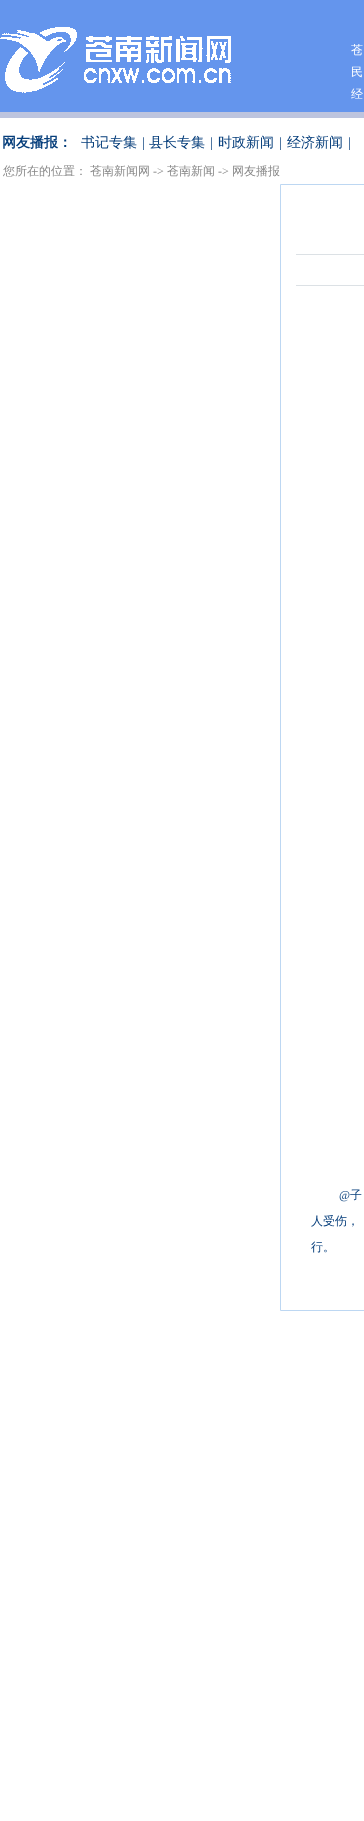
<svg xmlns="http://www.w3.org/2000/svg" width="364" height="1821">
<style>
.a{font:500 12px WenQuanYi Zen Hei;fill:#fff}
.b{font:bold 14px WenQuanYi Zen Hei;fill:#063e7b}
.c{font:500 14px WenQuanYi Zen Hei;fill:#063e7b}
.d{font:14px Liberation Serif;fill:#063e7b}
.e{font:500 12px WenQuanYi Zen Hei;fill:#888}
.f{font:12px Liberation Serif;fill:#888}
.g{font:12px Liberation Serif;fill:#063e7b}
.h{font:500 12px WenQuanYi Zen Hei;fill:#063e7b}
</style>
<rect width="100%" height="100%" fill="#fff"/>
<path fill="#6495ed" d="M0 0h364v112H0z"/>
<path fill="#bdc4de" d="M0 112h364v6H0z"/>
<image href="1.png" x="0" y="27" width="231" height="66"/>
<path fill="none" stroke="#bdd7f2" d="M280.5 184.5h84v1126H280.5z"/>
<path fill="#dce1e5" d="M296 254h68v1H296z"/>
<path fill="#dce1e5" d="M296 285h68v1H296z"/>
<text class="a" x="351" y="54">苍</text>
<text class="a" x="351" y="76">民</text>
<text class="a" x="351" y="98">经</text>
<text class="b" x="2" y="147">网友播报：</text>
<text class="c" x="81" y="147">书记专集</text>
<text class="d" x="142" y="147">|</text>
<text class="c" x="149" y="147">县长专集</text>
<text class="d" x="210" y="147">|</text>
<text class="c" x="218" y="147">时政新闻</text>
<text class="d" x="279" y="147">|</text>
<text class="c" x="287" y="147">经济新闻</text>
<text class="d" x="348" y="147">|</text>
<text class="e" x="3" y="175">您所在的位置：</text>
<text class="e" x="90" y="175">苍南新闻网</text>
<text class="f" x="153" y="175">-&gt;</text>
<text class="e" x="167" y="175">苍南新闻</text>
<text class="f" x="218" y="175">-&gt;</text>
<text class="e" x="232" y="175">网友播报</text>
<text class="g" x="339" y="1199">@</text>
<text class="h" x="350" y="1199">子</text>
<text class="h" x="311" y="1225">人受伤，</text>
<text class="h" x="311" y="1251">行。</text>
</svg>
